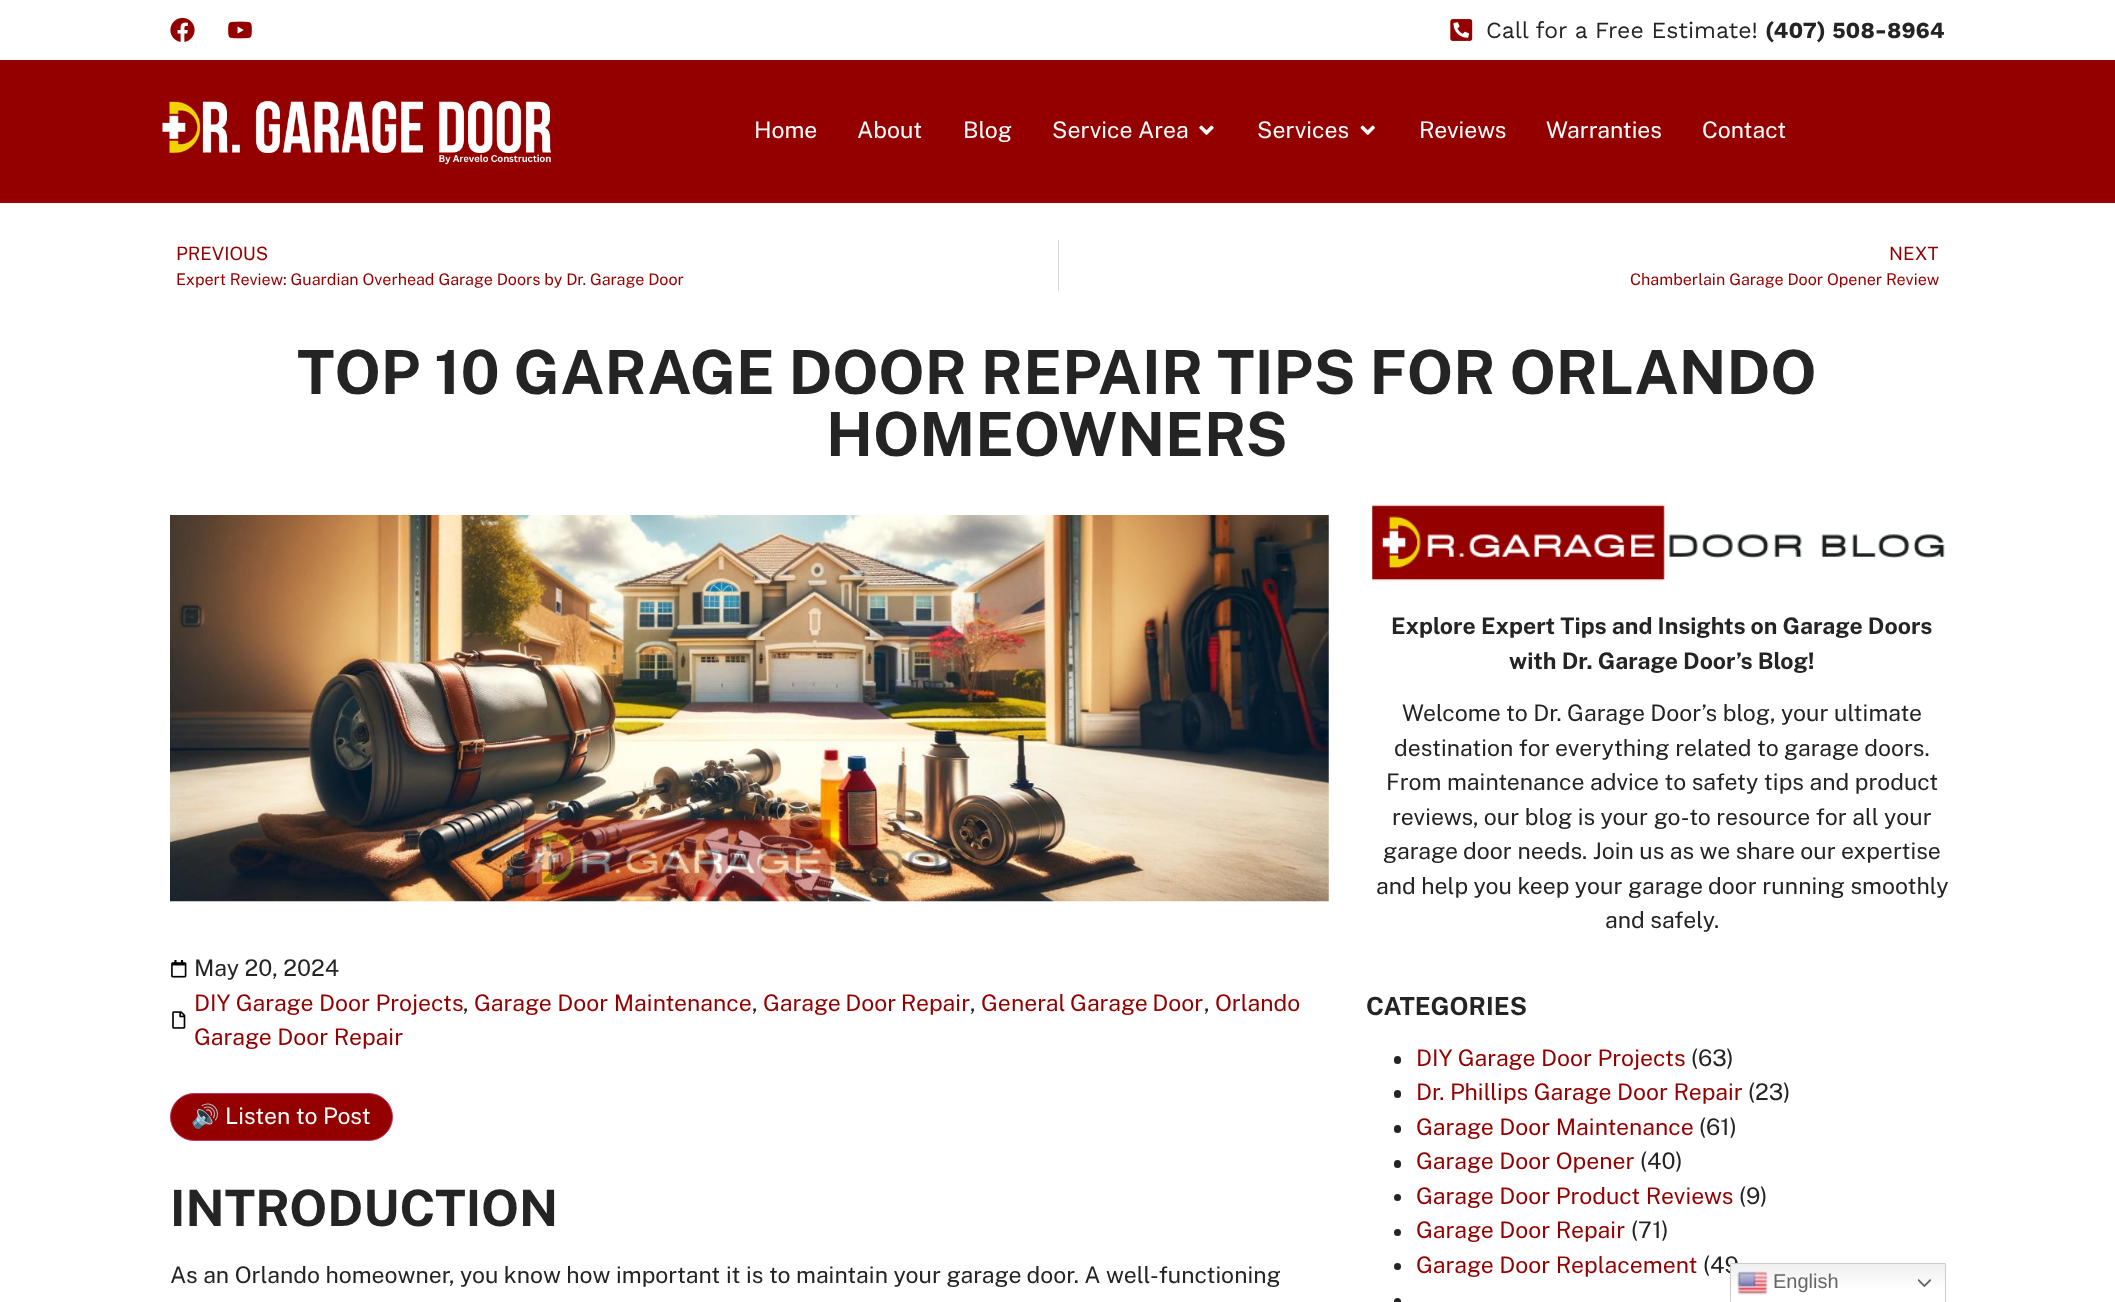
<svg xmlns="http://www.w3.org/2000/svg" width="2115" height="1302">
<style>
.a{font:23px Work Sans;fill:#242424}
.b{font:bold 23px Work Sans;fill:#242424}
.c{font:23px Public Sans;fill:#fff}
.d{font:18.5px Public Sans;fill:#940000}
.e{font:16.1px Public Sans;fill:#940000}
.f{font:bold 61px Public Sans;fill:#242424}
.g{font:23px Public Sans;fill:#242424}
.h{font:23px Public Sans;fill:#940000}
.i{font:23px Noto Color Emoji;fill:#fff}
.j{font:bold 50px Public Sans;fill:#242424}
.k{font:bold 23px Public Sans;fill:#242424}
.l{font:bold 25px Public Sans;fill:#242424}
.m{font:20px Liberation Sans;fill:#666}
</style>
<defs>
<linearGradient id="g1" gradientUnits="userSpaceOnUse" x1="1838" y1="1263" x2="1838" y2="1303"><stop offset="0" stop-color="#efefef"/><stop offset="0.7" stop-color="#fff"/></linearGradient>
</defs>
<rect width="100%" height="100%" fill="#fff"/>
<image href="1.png" x="170" y="18" width="25" height="24"/>
<image href="2.png" x="228" y="21" width="24" height="18"/>
<image href="3.png" x="1450" y="19" width="23" height="22"/>
<path fill="#940000" d="M0 60h2115v143H0z"/>
<image href="4.png" x="162" y="100" width="390" height="65"/>
<image href="5.png" x="1199" y="125" width="15" height="10"/>
<image href="6.png" x="1360" y="125" width="15" height="10"/>
<path fill="#d5d8dc" d="M1058 240h1v51H1058z"/>
<image href="7.png" x="170" y="515" width="1159" height="387"/>
<image href="8.png" x="171" y="960" width="16" height="18"/>
<image href="9.png" x="172" y="1011" width="14" height="18"/>
<rect fill="#940000" stroke="#c36" x="170.5" y="1093.5" width="222" height="47" rx="23.5"/>
<image href="10.png" x="1372" y="504" width="573" height="77"/>
<rect fill="#242424" x="1394" y="1056" width="7" height="8" rx="3.5"/>
<rect fill="#242424" x="1394" y="1090" width="7" height="8" rx="3.5"/>
<rect fill="#242424" x="1394" y="1125" width="7" height="8" rx="3.5"/>
<rect fill="#242424" x="1394" y="1160" width="7" height="8" rx="3.5"/>
<circle fill="#242424" cx="1397.5" cy="1197.5" r="3.5"/>
<circle fill="#242424" cx="1397.5" cy="1232.5" r="3.5"/>
<circle fill="#242424" cx="1397.5" cy="1266.5" r="3.5"/>
<circle fill="#242424" cx="1397.5" cy="1301.5" r="3.5"/>
<text class="a" x="1486" y="38">Call for a Free Estimate!</text>
<text class="b" x="1765" y="38">(407) 508-8964</text>
<text class="c" x="754" y="138">Home</text>
<text class="c" x="857" y="138">About</text>
<text class="c" x="963" y="138">Blog</text>
<text class="c" x="1052" y="138">Service Area</text>
<text class="c" x="1257" y="138">Services</text>
<text class="c" x="1419" y="138">Reviews</text>
<text class="c" x="1546" y="138">Warranties</text>
<text class="c" x="1702" y="138">Contact</text>
<text class="d" x="176" y="260">PREVIOUS</text>
<text class="e" x="176" y="285">Expert Review: Guardian Overhead Garage Doors by Dr. Garage Door</text>
<text class="d" x="1889" y="260">NEXT</text>
<text class="e" x="1630" y="285">Chamberlain Garage Door Opener Review</text>
<text class="f" x="297" y="394">TOP 10 GARAGE DOOR REPAIR TIPS FOR ORLANDO</text>
<text class="f" x="826" y="456">HOMEOWNERS</text>
<text class="g" x="194" y="976">May 20, 2024</text>
<text class="h" x="194" y="1011">DIY Garage Door Projects</text>
<text class="g" x="463" y="1011">,</text>
<text class="h" x="474" y="1011">Garage Door Maintenance</text>
<text class="g" x="752" y="1011">,</text>
<text class="h" x="763" y="1011" word-spacing="-1">Garage Door Repair</text>
<text class="g" x="970" y="1011">,</text>
<text class="h" x="981" y="1011" word-spacing="-1">General Garage Door</text>
<text class="g" x="1204" y="1011">,</text>
<text class="h" x="1215" y="1011">Orlando</text>
<text class="h" x="194" y="1045">Garage Door Repair</text>
<text class="i" x="191" y="1124">🔊</text>
<text class="c" x="225" y="1124">Listen to Post</text>
<text class="j" x="170" y="1226">INTRODUCTION</text>
<text class="g" x="170" y="1283">As an Orlando homeowner, you know how important it is to maintain your garage door. A well-functioning</text>
<text class="k" x="1391" y="634">Explore Expert Tips and Insights on Garage Doors</text>
<text class="k" x="1509" y="669">with Dr. Garage Door’s Blog!</text>
<text class="g" x="1402" y="721">Welcome to Dr. Garage Door’s blog, your ultimate</text>
<text class="g" x="1394" y="756">destination for everything related to garage doors.</text>
<text class="g" x="1386" y="790">From maintenance advice to safety tips and product</text>
<text class="g" x="1392" y="825">reviews, our blog is your go-to resource for all your</text>
<text class="g" x="1383" y="859">garage door needs. Join us as we share our expertise</text>
<text class="g" x="1376" y="894">and help you keep your garage door running smoothly</text>
<text class="g" x="1605" y="928">and safely.</text>
<text class="l" x="1366" y="1015">CATEGORIES</text>
<text class="h" x="1416" y="1066">DIY Garage Door Projects</text>
<text class="g" x="1691" y="1066">(63)</text>
<text class="h" x="1416" y="1100">Dr. Phillips Garage Door Repair</text>
<text class="g" x="1748" y="1100">(23)</text>
<text class="h" x="1416" y="1135">Garage Door Maintenance</text>
<text class="g" x="1699" y="1135">(61)</text>
<text class="h" x="1416" y="1169">Garage Door Opener</text>
<text class="g" x="1640" y="1169">(40)</text>
<text class="h" x="1416" y="1204">Garage Door Product Reviews</text>
<text class="g" x="1739" y="1204">(9)</text>
<text class="h" x="1416" y="1238">Garage Door Repair</text>
<text class="g" x="1631" y="1238">(71)</text>
<text class="h" x="1416" y="1273">Garage Door Replacement</text>
<text class="g" x="1703" y="1273">(49</text>
<path fill="url(#g1)" d="M1731 1264h214v23H1731z"/>
<path fill="none" stroke="#ccc" d="M1730.5 1263.5h215v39H1730.5z"/>
<image href="11.png" x="1737" y="1271" width="31" height="24"/>
<text class="m" x="1773" y="1288">English</text>
<image href="12.png" x="1918" y="1279" width="13" height="9"/>
</svg>
